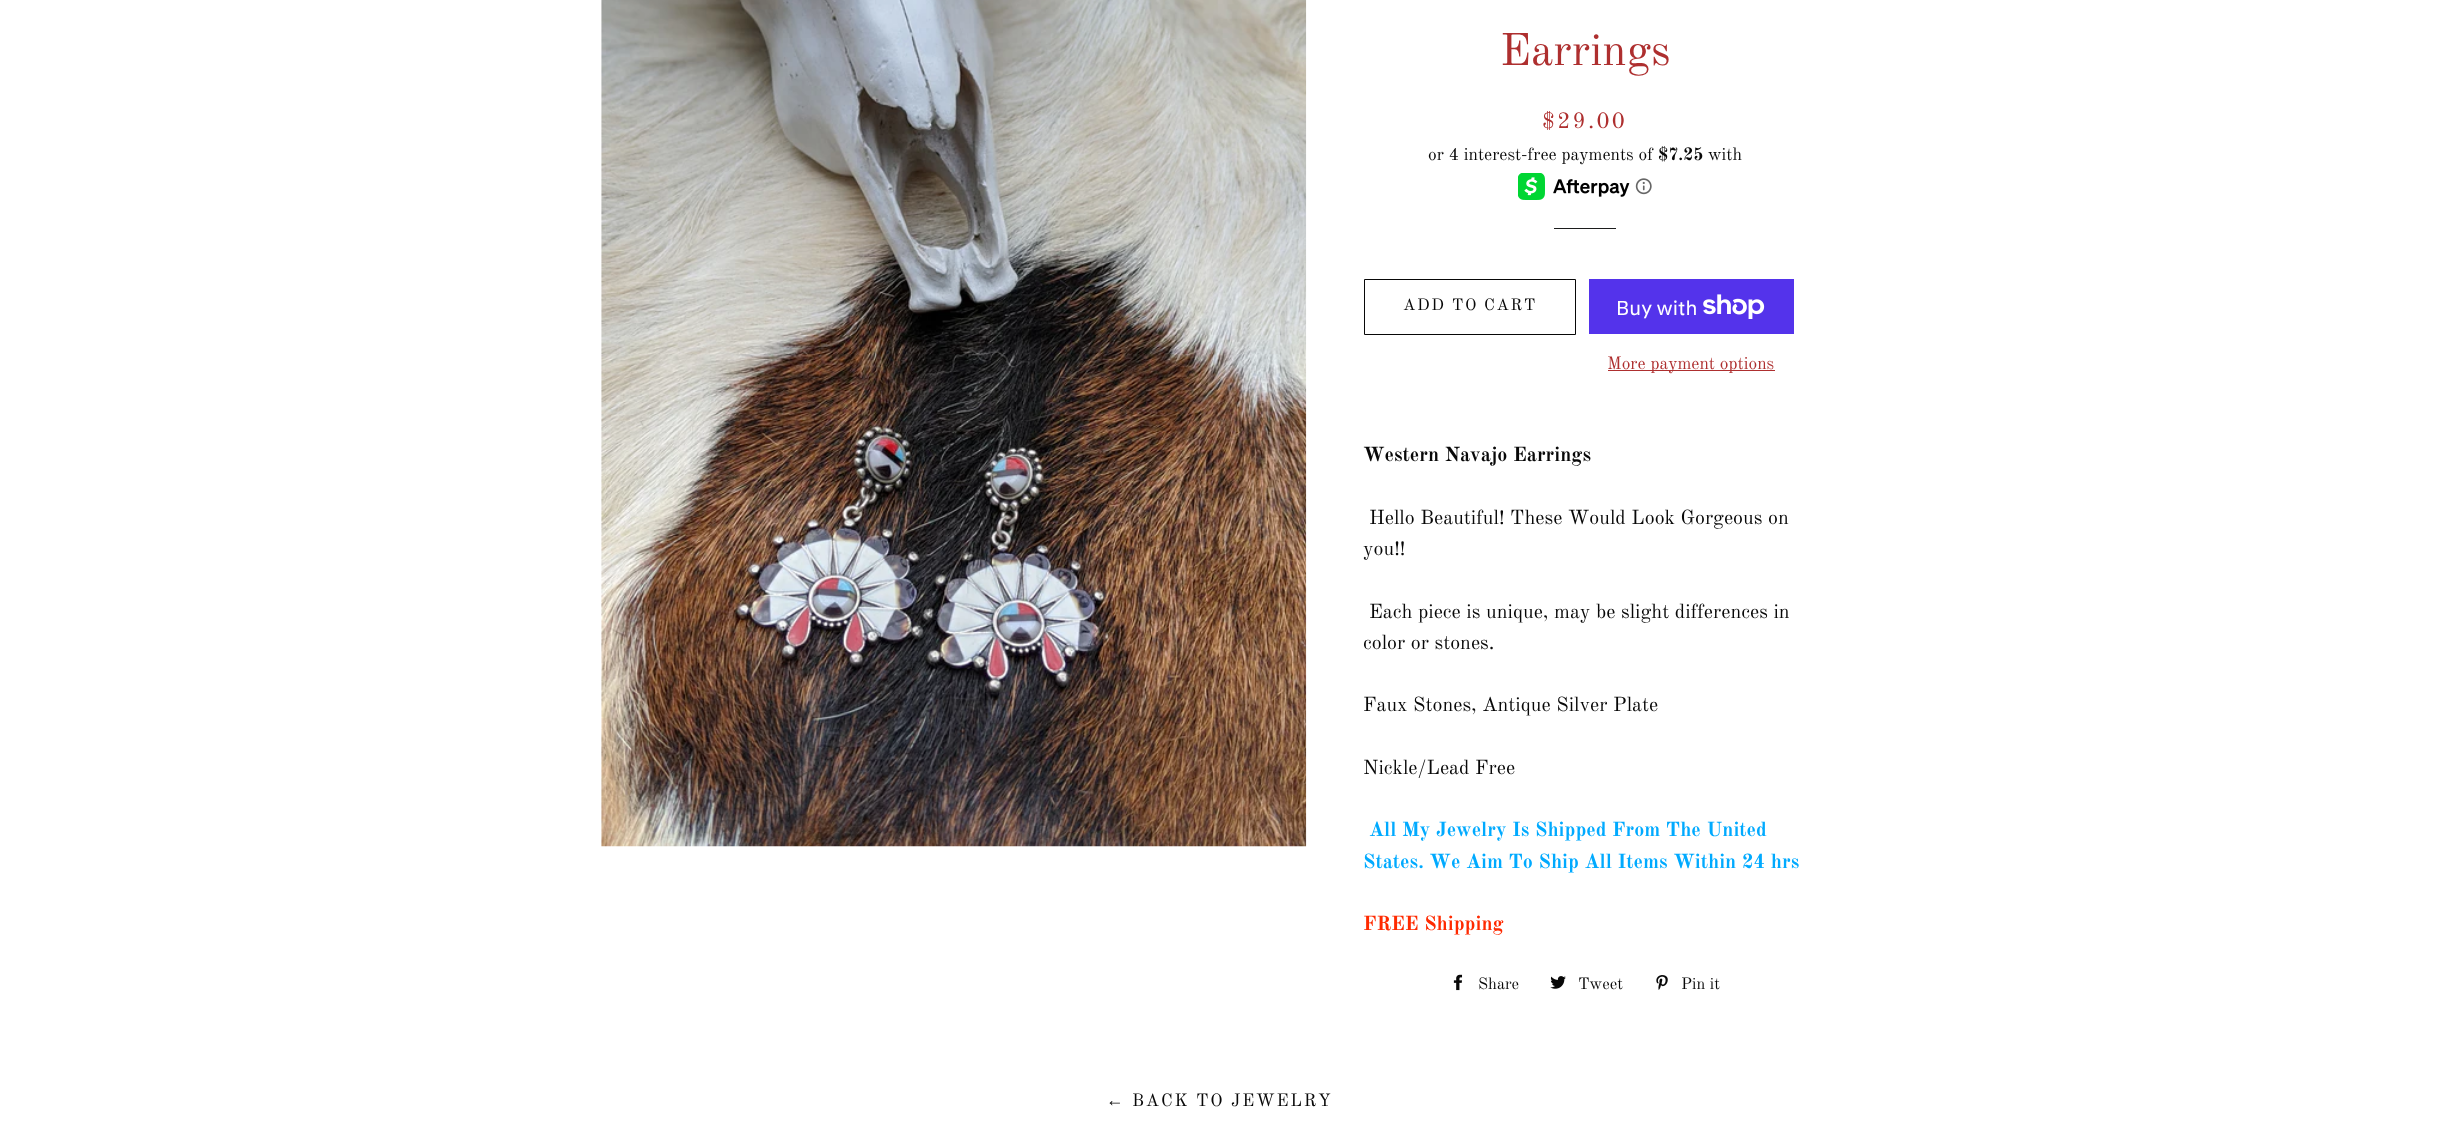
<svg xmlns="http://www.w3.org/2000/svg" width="2438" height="1123">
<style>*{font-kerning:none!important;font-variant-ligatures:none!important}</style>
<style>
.a{font:45px Old Standard TT;fill:#ae2f2f}
.b{font:22.5px Old Standard TT;letter-spacing:2.25px;fill:#ae2f2f}
.c{font:17.5px Old Standard TT;fill:#080808}
.d{font:bold 17.5px Old Standard TT;fill:#080808}
.e{font:16.25px Old Standard TT;letter-spacing:1.6px;fill:#080808}
.f{font:20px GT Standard;fill:#fff}
.g{font:17.5px Old Standard TT;fill:#ae2f2f}
.h{font:bold 20px Old Standard TT;fill:#080808}
.i{font:20px Old Standard TT;fill:#080808}
.j{font:bold 20px Old Standard TT;fill:#0af}
.k{font:bold 20px Old Standard TT;fill:#ff2a00}
.l{font:16.25px Old Standard TT;fill:#080808}
.m{font:17.5px Liberation Serif;letter-spacing:1.75px;fill:#080808}
.n{font:17.5px Old Standard TT;letter-spacing:1.75px;fill:#080808}
</style>
<rect width="100%" height="100%" fill="#fff"/>
<image href="1.png" x="601" y="0" width="706" height="847"/>
<image href="2.png" x="1518" y="173" width="112" height="27"/>
<image href="3.png" x="1635" y="178" width="17" height="17"/>
<path fill="#1c1d1d" d="M1554 228h62v1H1554z"/>
<path fill="none" stroke="#080808" d="M1364.5 279.5h211v55H1364.5z"/>
<path fill="#5433eb" d="M1589 279h205v55H1589z"/>
<image href="4.png" x="1703" y="294" width="62" height="25"/>
<path fill="#ae2f2f" d="M1608 370h167v1H1608z"/>
<image href="5.png" x="1453" y="974" width="10" height="17"/>
<image href="6.png" x="1550" y="976" width="16" height="13"/>
<image href="7.png" x="1656" y="975" width="12" height="15"/>
<text class="a" x="1500" y="65">Earrings</text>
<text class="b" x="1542" y="128">$29.00</text>
<text class="c" x="1428" y="160">or 4 interest-free payments of</text>
<text class="d" x="1658" y="160">$7.25</text>
<text class="c" x="1708" y="160">with</text>
<text class="e" x="1403" y="310">ADD TO CART</text>
<text class="f" x="1616" y="315">Buy with</text>
<text class="g" x="1607" y="369">More payment options</text>
<text class="h" x="1363" y="461">Western Navajo Earrings</text>
<text class="i" x="1369" y="524">Hello Beautiful! These Would Look Gorgeous on</text>
<text class="i" x="1363" y="555">you!!</text>
<text class="i" x="1369" y="618">Each piece is unique, may be slight differences in</text>
<text class="i" x="1363" y="649">color or stones.</text>
<text class="i" x="1363" y="711">Faux Stones, Antique Silver Plate</text>
<text class="i" x="1363" y="774">Nickle/Lead Free</text>
<text class="j" x="1369" y="836">All My Jewelry Is Shipped From The United</text>
<text class="j" x="1363" y="868">States. We Aim To Ship All Items Within</text>
<text class="j" x="1742" y="868">24 hrs</text>
<text class="k" x="1363" y="930">FREE Shipping</text>
<text class="l" x="1478" y="989">Share</text>
<text class="l" x="1578" y="989">Tweet</text>
<text class="l" x="1681" y="989">Pin it</text>
<text class="m" x="1106" y="1106">←</text>
<text class="n" x="1132" y="1106">BACK TO JEWELRY</text>
</svg>
